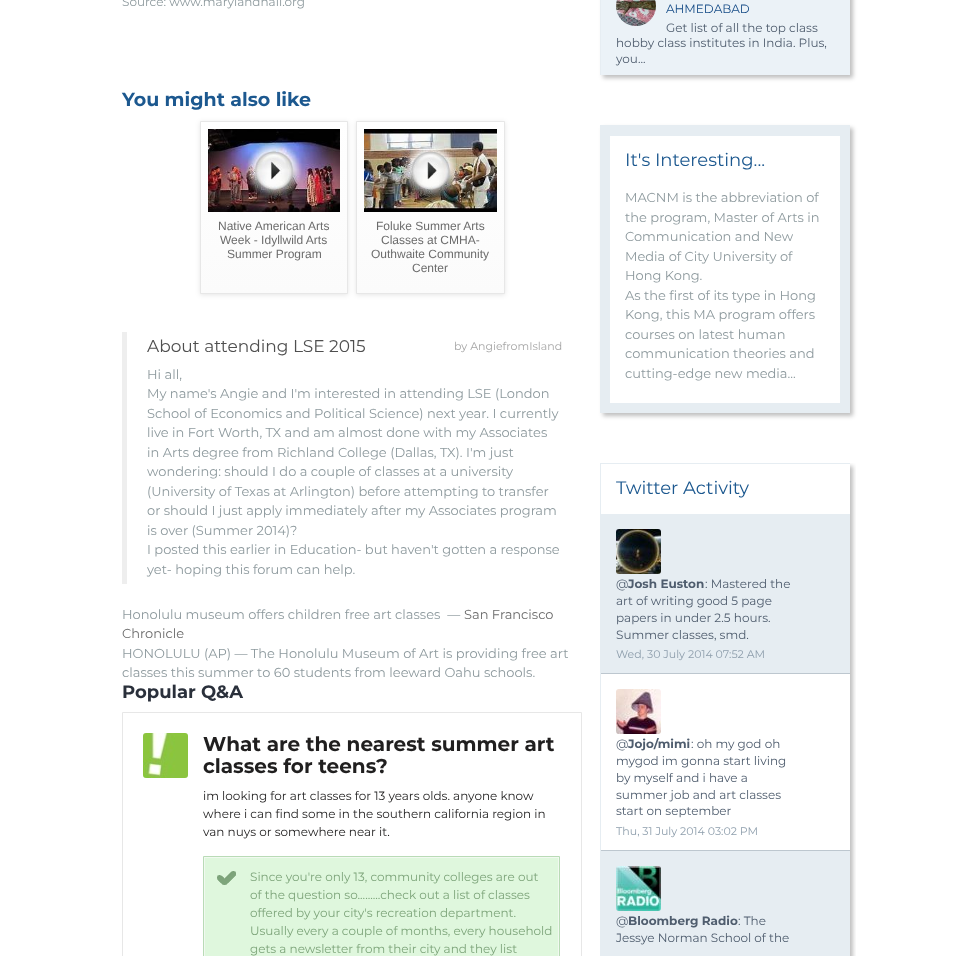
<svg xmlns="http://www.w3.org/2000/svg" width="972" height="956">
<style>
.a{font:12px Montserrat;fill:#8e9a9e}
.b{font:bold 19px Montserrat;fill:#1c588f}
.c{font:12px Liberation Sans;fill:#6c6c6c}
.d{font:17px Montserrat;fill:#4f4f4f}
.e{font:11px Montserrat;fill:#a6a6a6}
.f{font:13px Montserrat;fill:#8e9a9e}
.g{font:13px Montserrat;fill:#6c6c6c}
.h{font:bold 18px Montserrat;fill:#2a303b}
.i{font:bold 20px Montserrat;fill:#201f1f}
.j{font:12px Montserrat;fill:#201f1f}
.k{font:12px Montserrat;fill:#7ea57b}
.l{font:12px Montserrat;fill:#164c87}
.m{font:12px Montserrat;fill:#4f5d6e}
.n{font:18px Montserrat;fill:#1c588f}
.o{font:bold 12px Montserrat;fill:#4f5d6e}
.p{font:11px Montserrat;fill:#8e9eac}
</style>
<defs>
<linearGradient id="g1" gradientUnits="userSpaceOnUse" x1="274" y1="122" x2="274" y2="293"><stop offset="0" stop-color="#fff"/><stop offset="1" stop-color="#fbfbfb"/></linearGradient>
<linearGradient id="g2" gradientUnits="userSpaceOnUse" x1="431" y1="122" x2="431" y2="293"><stop offset="0" stop-color="#fff"/><stop offset="1" stop-color="#fbfbfb"/></linearGradient>
<clipPath id="clip1"><path d="M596 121h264v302h-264zm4 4h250v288h-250z" clip-rule="evenodd"/></clipPath>
<clipPath id="clip2"><path d="M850 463h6v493H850z"/></clipPath>
</defs>
<rect width="100%" height="100%" fill="#fff"/>
<path fill="#0000001a" filter="blur(2.5px)" d="M200 122h148v173H200z"/>
<path fill="url(#g1)" d="M201 122h146v171H201z"/>
<path fill="none" stroke="#e7e7e7" d="M200.5 121.5h147v172H200.5z"/>
<image href="1.png" x="208" y="129" width="132" height="83"/>
<path fill="#0000001a" filter="blur(2.5px)" d="M356 122h149v173H356z"/>
<path fill="url(#g2)" d="M357 122h147v171H357z"/>
<path fill="none" stroke="#e7e7e7" d="M356.5 121.5h148v172H356.5z"/>
<image href="2.png" x="364" y="129" width="133" height="83"/>
<path fill="#eee" d="M122 332h5v252H122z"/>
<path fill="none" stroke="#e7e7e7" d="M122.5 712.5h459v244H122.5z"/>
<image href="3.png" x="143" y="733" width="45" height="45"/>
<path fill="none" stroke="#b9dbb6" d="M203.5 856.5h356v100H203.5z"/>
<path fill="#dff7dd" stroke="#f1f9f0" d="M204.5 857.5h354v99H204.5z"/>
<image href="4.png" x="217" y="871" width="19" height="14"/>
<path fill="#00000040" filter="blur(2px)" d="M603 -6h250v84H603z"/>
<path fill="#ebf2f7" d="M601 0h249v75H601z"/>
<path fill="#e6edf2" d="M600 75v-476l1 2v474z"/>
<image href="5.png" x="616" y="0" width="40" height="26"/>
<g clip-path="url(#clip1)">
<path fill="#00000040" filter="blur(2px)" d="M603 128h250v288H603z"/>
</g>
<path fill="none" stroke="#e6edf2" stroke-width="10" d="M605 130h240v278H605z"/>
<path fill="#e6edf2" d="M610 135h230v1H610z"/>
<g clip-path="url(#clip2)">
<path fill="#00000040" filter="blur(2px)" d="M603 466h250v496H603z"/>
</g>
<path fill="#e6edf2" d="M600 463h1v493H600z"/>
<path fill="#e6edf2" d="M601 463h249v1H601z"/>
<path fill="#e6edf2" d="M601 514h249v159H601z"/>
<image href="6.png" x="616" y="529" width="45" height="45"/>
<path fill="#bdc7cf" d="M601 673h249v1H601z"/>
<image href="7.png" x="616" y="689" width="45" height="45"/>
<path fill="#e6edf2" d="M601 851h249v105H601z"/>
<path fill="#bdc7cf" d="M601 850h249v1H601z"/>
<image href="8.png" x="616" y="866" width="45" height="45"/>
<text class="a" x="122" y="6">Source: www.marylandhall.org</text>
<text class="b" x="122" y="106">You might also like</text>
<text class="c" x="218" y="230">Native American Arts</text>
<text class="c" x="220" y="244">Week - Idyllwild Arts</text>
<text class="c" x="227" y="258">Summer Program</text>
<text class="c" x="376" y="230">Foluke Summer Arts</text>
<text class="c" x="381" y="244">Classes at CMHA-</text>
<text class="c" x="371" y="258">Outhwaite Community</text>
<text class="c" x="412" y="272">Center</text>
<text class="d" x="147" y="352">About attending LSE 2015</text>
<text class="e" x="454" y="350">by AngiefromIsland</text>
<text class="f" x="147" y="379">Hi all,</text>
<text class="f" x="147" y="398">My name's Angie and I'm interested in attending LSE (London</text>
<text class="f" x="147" y="418">School of Economics and Political Science) next year. I currently</text>
<text class="f" x="147" y="437">live in Fort Worth, TX and am almost done with my Associates</text>
<text class="f" x="147" y="457">in Arts degree from Richland College (Dallas, TX). I'm just</text>
<text class="f" x="147" y="476">wondering: should I do a couple of classes at a university</text>
<text class="f" x="147" y="496">(University of Texas at Arlington) before attempting to transfer</text>
<text class="f" x="147" y="515">or should I just apply immediately after my Associates program</text>
<text class="f" x="147" y="535">is over (Summer 2014)?</text>
<text class="f" x="147" y="554">I posted this earlier in Education- but haven't gotten a response</text>
<text class="f" x="147" y="574">yet- hoping this forum can help.</text>
<text class="f" xml:space="preserve" x="122" y="619">Honolulu museum offers children free art classes  —</text>
<text class="g" x="464" y="619">San Francisco</text>
<text class="g" x="122" y="638">Chronicle</text>
<text class="f" x="122" y="658">HONOLULU (AP) — The Honolulu Museum of Art is providing free art</text>
<text class="f" x="122" y="677">classes this summer to 60 students from leeward Oahu schools.</text>
<text class="h" x="122" y="698">Popular Q&amp;A</text>
<text class="i" x="203" y="751">What are the nearest summer art</text>
<text class="i" x="203" y="773">classes for teens?</text>
<text class="j" x="203" y="800">im looking for art classes for 13 years olds. anyone know</text>
<text class="j" x="203" y="818">where i can find some in the southern california region in</text>
<text class="j" x="203" y="836">van nuys or somewhere near it.</text>
<text class="k" x="250" y="881">Since you're only 13, community colleges are out</text>
<text class="k" x="250" y="899">of the question so.........check out a list of classes</text>
<text class="k" x="250" y="917">offered by your city's recreation department.</text>
<text class="k" x="250" y="935">Usually every a couple of months, every household</text>
<text class="k" x="250" y="953">gets a newsletter from their city and they list</text>
<text class="l" x="666" y="13">AHMEDABAD</text>
<text class="m" x="666" y="32">Get list of all the top class</text>
<text class="m" x="616" y="47">hobby class institutes in India. Plus,</text>
<text class="m" x="616" y="63">you...</text>
<text class="n" x="625" y="166">It's Interesting...</text>
<text class="f" x="625" y="202">MACNM is the abbreviation of</text>
<text class="f" x="625" y="222">the program, Master of Arts in</text>
<text class="f" x="625" y="241">Communication and New</text>
<text class="f" x="625" y="261">Media of City University of</text>
<text class="f" x="625" y="280">Hong Kong.</text>
<text class="f" x="625" y="300">As the first of its type in Hong</text>
<text class="f" x="625" y="319">Kong, this MA program offers</text>
<text class="f" x="625" y="339">courses on latest human</text>
<text class="f" x="625" y="358">communication theories and</text>
<text class="f" x="625" y="378">cutting-edge new media...</text>
<text class="n" x="616" y="494">Twitter Activity</text>
<text class="m" x="616" y="588">@</text>
<text class="o" x="628" y="588">Josh Euston</text>
<text class="m" x="705" y="588">: Mastered the</text>
<text class="m" x="616" y="605">art of writing good 5 page</text>
<text class="m" x="616" y="622">papers in under 2.5 hours.</text>
<text class="m" x="616" y="639">Summer classes, smd.</text>
<text class="p" x="616" y="658">Wed, 30 July 2014 07:52 AM</text>
<text class="m" x="616" y="748">@</text>
<text class="o" x="628" y="748">Jojo/mimi</text>
<text class="m" x="691" y="748">: oh my god oh</text>
<text class="m" x="616" y="765">mygod im gonna start living</text>
<text class="m" x="616" y="782">by myself and i have a</text>
<text class="m" x="616" y="799">summer job and art classes</text>
<text class="m" x="616" y="815">start on september</text>
<text class="p" x="616" y="835">Thu, 31 July 2014 03:02 PM</text>
<text class="m" x="616" y="925">@</text>
<text class="o" x="628" y="925">Bloomberg Radio</text>
<text class="m" x="738" y="925">: The</text>
<text class="m" x="616" y="942">Jessye Norman School of the</text>
</svg>
